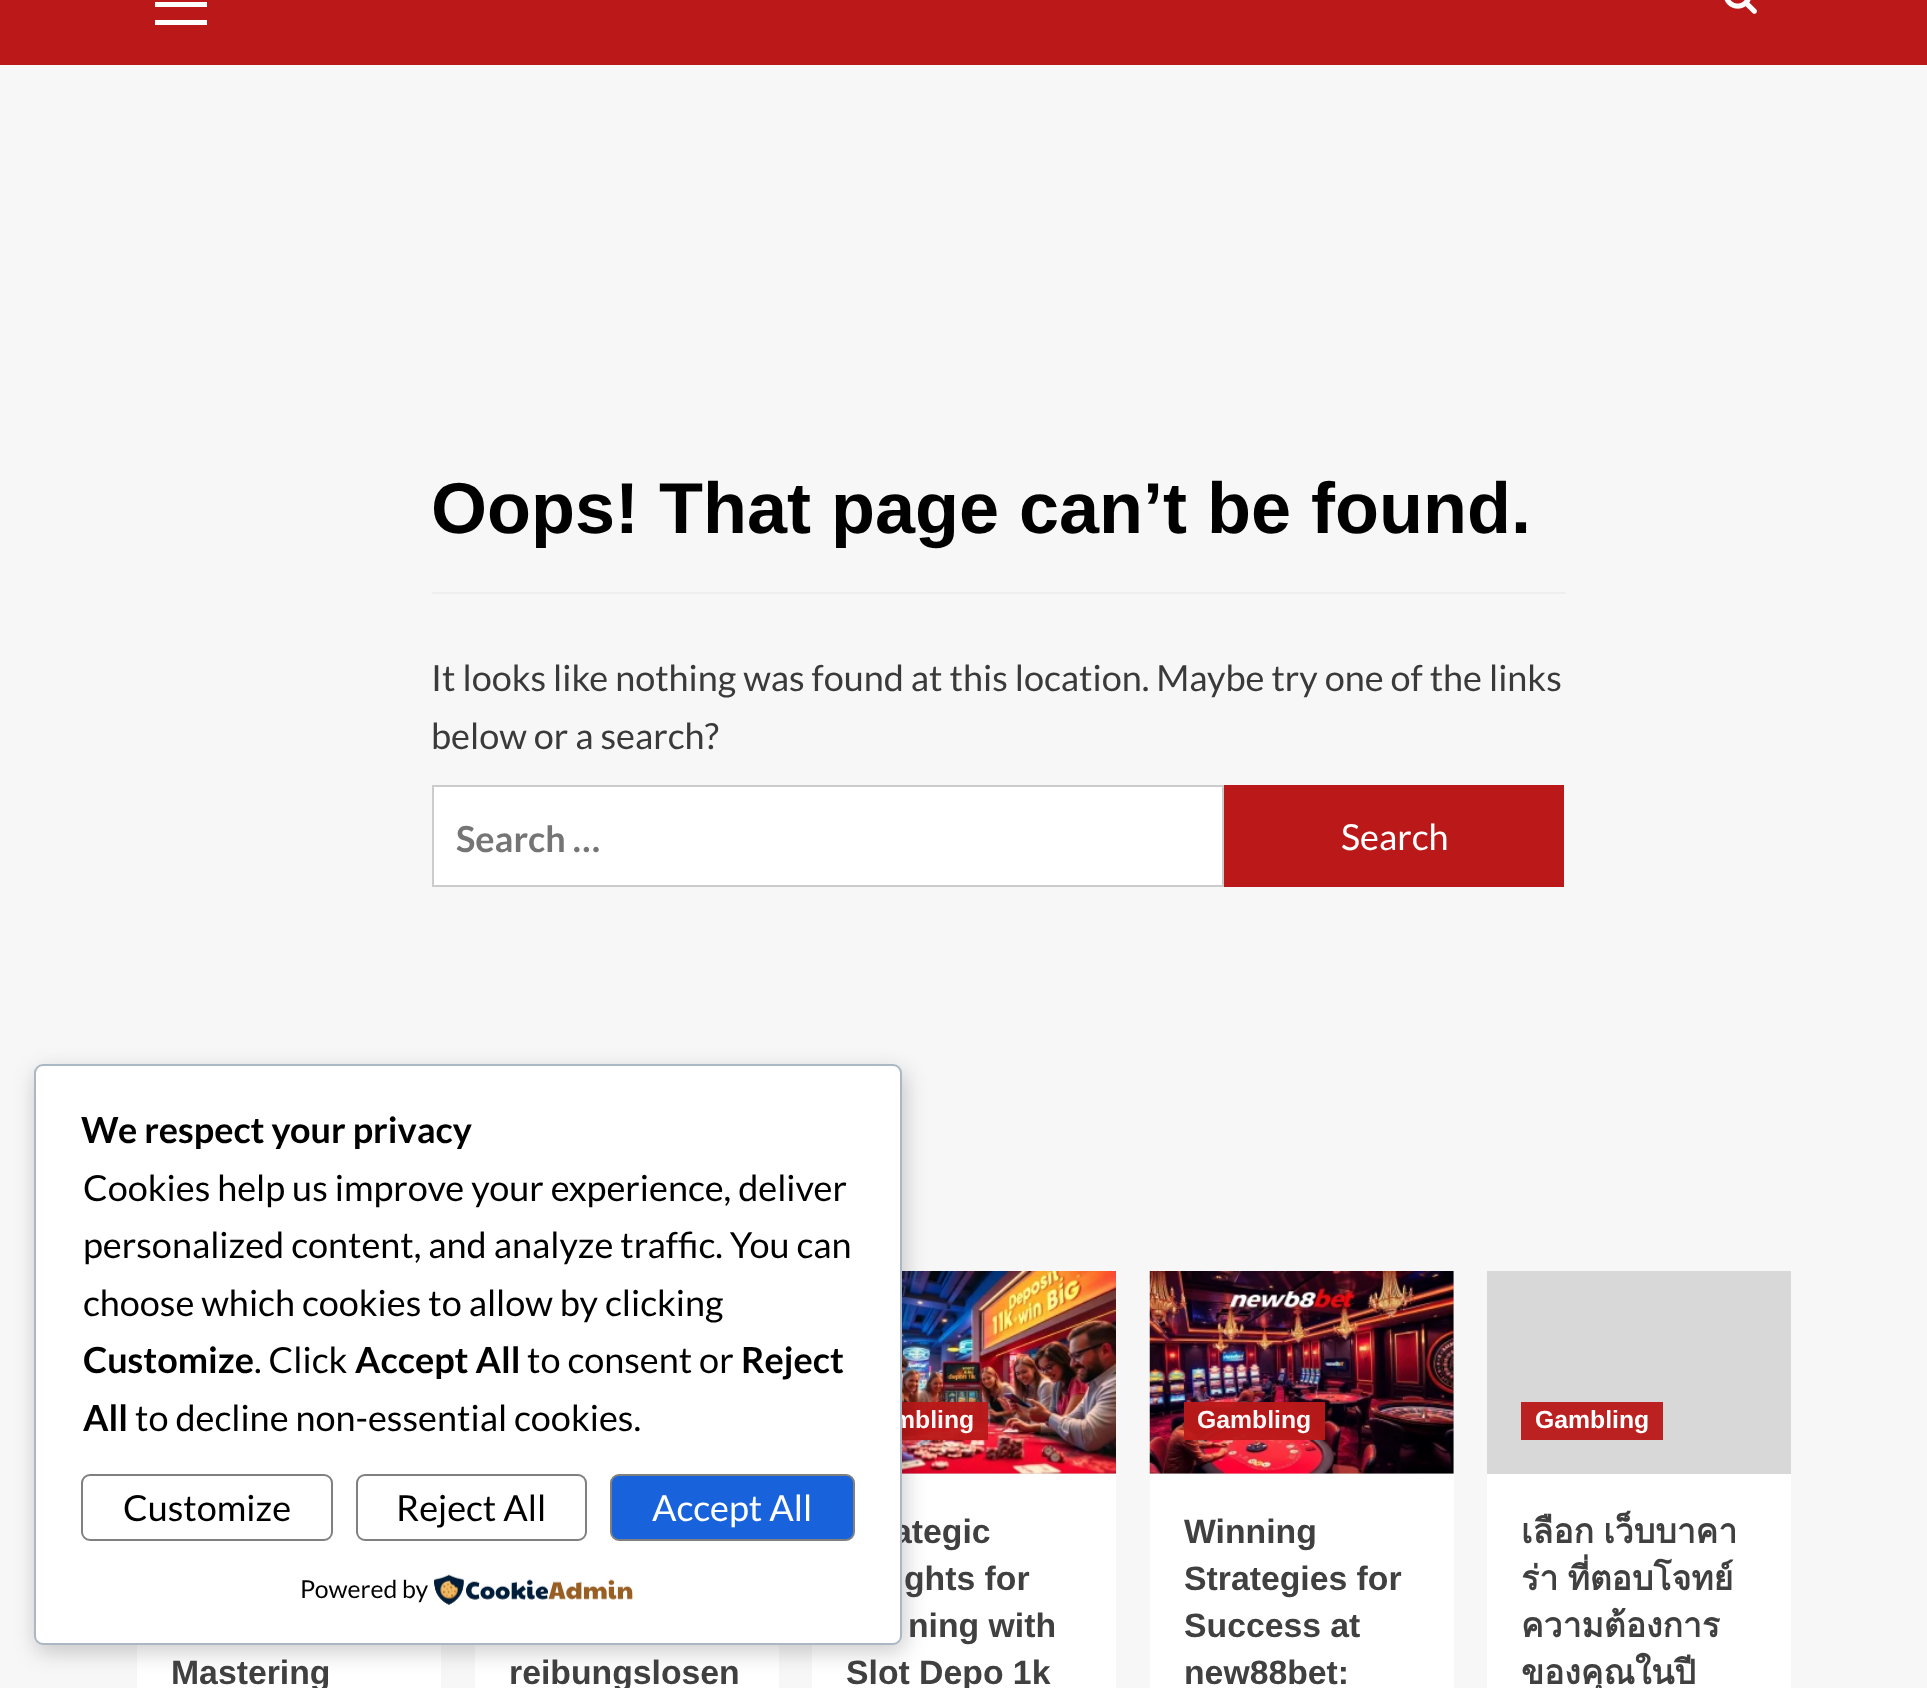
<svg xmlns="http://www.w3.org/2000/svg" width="1927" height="1688">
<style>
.a{font:bold 72px Liberation Sans;fill:#000}
.b{font:36px Lato;fill:#3a3a3a}
.c{font:bold 36px Lato;fill:#757575}
.d{font:36px Lato;fill:#fff}
.e{font:bold 33.75px Liberation Sans;fill:#404040}
.f{font:bold 24.75px Liberation Sans;fill:#fcf6f6}
.g{font:bold 24.75px Liberation Sans;fill:#fff}
.h{font:bold 33.75px Loma;fill:#404040}
.i{font:bold 36px Lato;fill:#000}
.j{font:36px Lato;fill:#000}
.k{font:24.75px Lato;fill:#000}
</style>
<rect width="100%" height="100%" fill="#f7f7f7"/>
<path fill="#bb1919" d="M0 0h1927v65H0z"/>
<path fill="#fff" d="M155 2h52v5H155z"/>
<path fill="#fff" d="M155 20h52v5H155z"/>
<image href="1.png" x="1724" y="0" width="33" height="14"/>
<path fill="#eee" d="M432 592h1134v2H432z"/>
<path fill="#fff" stroke="#ccc" stroke-width="2" d="M433 786h790v100H433z"/>
<path fill="#bb1919" d="M1224 785h340v102H1224z"/>
<path fill="#fff" d="M137 1645h304v43H137z"/>
<path fill="#fff" d="M475 1645h304v43H475z"/>
<path fill="#fff" d="M812 1474h304v214H812z"/>
<path fill="#d8d8d8" d="M902 1473h214v1H902z"/>
<image href="2.png" x="902" y="1271" width="214" height="203"/>
<path fill="#bb1919f5" d="M902 1402h86v38H902z"/>
<path fill="#fff" d="M1150 1474h304v214H1150z"/>
<path fill="#d8d8d8" d="M1150 1271h304v203H1150z"/>
<image href="3.png" x="1149" y="1271" width="305" height="203"/>
<path fill="#bb1919f5" d="M1184 1402h141v38H1184z"/>
<path fill="#fff" d="M1487 1474h304v214H1487z"/>
<path fill="#d8d8d8" d="M1487 1271h304v203H1487z"/>
<path fill="#bc2121" d="M1521 1402h142v38H1521z"/>
<rect fill="#00000033" filter="blur(11px)" x="36" y="1071" width="869" height="581" rx="9"/>
<text class="a" x="431" y="533">Oops! That page can’t be found.</text>
<text class="b" x="431" y="691">It looks like nothing was found at this location. Maybe try one of the links</text>
<text class="b" x="431" y="749">below or a search?</text>
<text class="c" x="456" y="852">Search …</text>
<text class="d" x="1341" y="850">Search</text>
<text class="e" x="171" y="1684">Mastering</text>
<text class="e" x="509" y="1684">reibungslosen</text>
<text class="f" x="893" y="1428">mbling</text>
<text class="e" x="893" y="1543">ategic</text>
<text class="e" x="904" y="1590">ghts for</text>
<text class="e" x="908" y="1637">ning with</text>
<text class="e" x="846" y="1684">Slot Depo 1k</text>
<text class="f" x="1197" y="1428">Gambling</text>
<text class="e" x="1184" y="1543">Winning</text>
<text class="e" x="1184" y="1590">Strategies for</text>
<text class="e" x="1184" y="1637">Success at</text>
<text class="e" x="1184" y="1684">new88bet:</text>
<text class="g" x="1535" y="1428">Gambling</text>
<text class="h" x="1521" y="1543" word-spacing="-2">เลือก เว็บบาคา</text>
<text class="h" x="1521" y="1590" word-spacing="-2">ร่า ที่ตอบโจทย์</text>
<text class="h" x="1521" y="1637">ความต้องการ</text>
<text class="h" x="1521" y="1684">ของคุณในปี</text>
<rect fill="#fff" stroke="#abb8c3" stroke-width="2" x="35" y="1065" width="866" height="579" rx="8"/>
<text class="i" x="81" y="1143">We respect your privacy</text>
<text class="j" x="83" y="1201">Cookies help us improve your experience, deliver</text>
<text class="j" x="83" y="1258">personalized content, and analyze traffic. You can</text>
<text class="j" x="83" y="1316">choose which cookies to allow by clicking</text>
<text class="i" x="83" y="1373">Customize</text>
<text class="j" x="254" y="1373">. Click</text>
<text class="i" x="355" y="1373">Accept All</text>
<text class="j" x="527" y="1373">to consent or</text>
<text class="i" x="741" y="1373">Reject</text>
<text class="i" x="83" y="1431">All</text>
<text class="j" x="135" y="1431">to decline non-essential cookies.</text>
<rect fill="none" stroke="#808080" stroke-width="2" x="82" y="1475" width="250" height="65" rx="8"/>
<text class="j" x="123" y="1521">Customize</text>
<rect fill="none" stroke="#808080" stroke-width="2" x="357" y="1475" width="229" height="65" rx="8"/>
<text class="j" x="396" y="1521">Reject All</text>
<rect fill="#1863dc" stroke="#808080" stroke-width="2" x="611" y="1475" width="243" height="65" rx="8"/>
<text class="d" x="652" y="1521">Accept All</text>
<text class="k" x="300" y="1598">Powered by</text>
<image href="4.png" x="434" y="1574" width="199" height="31"/>
</svg>
